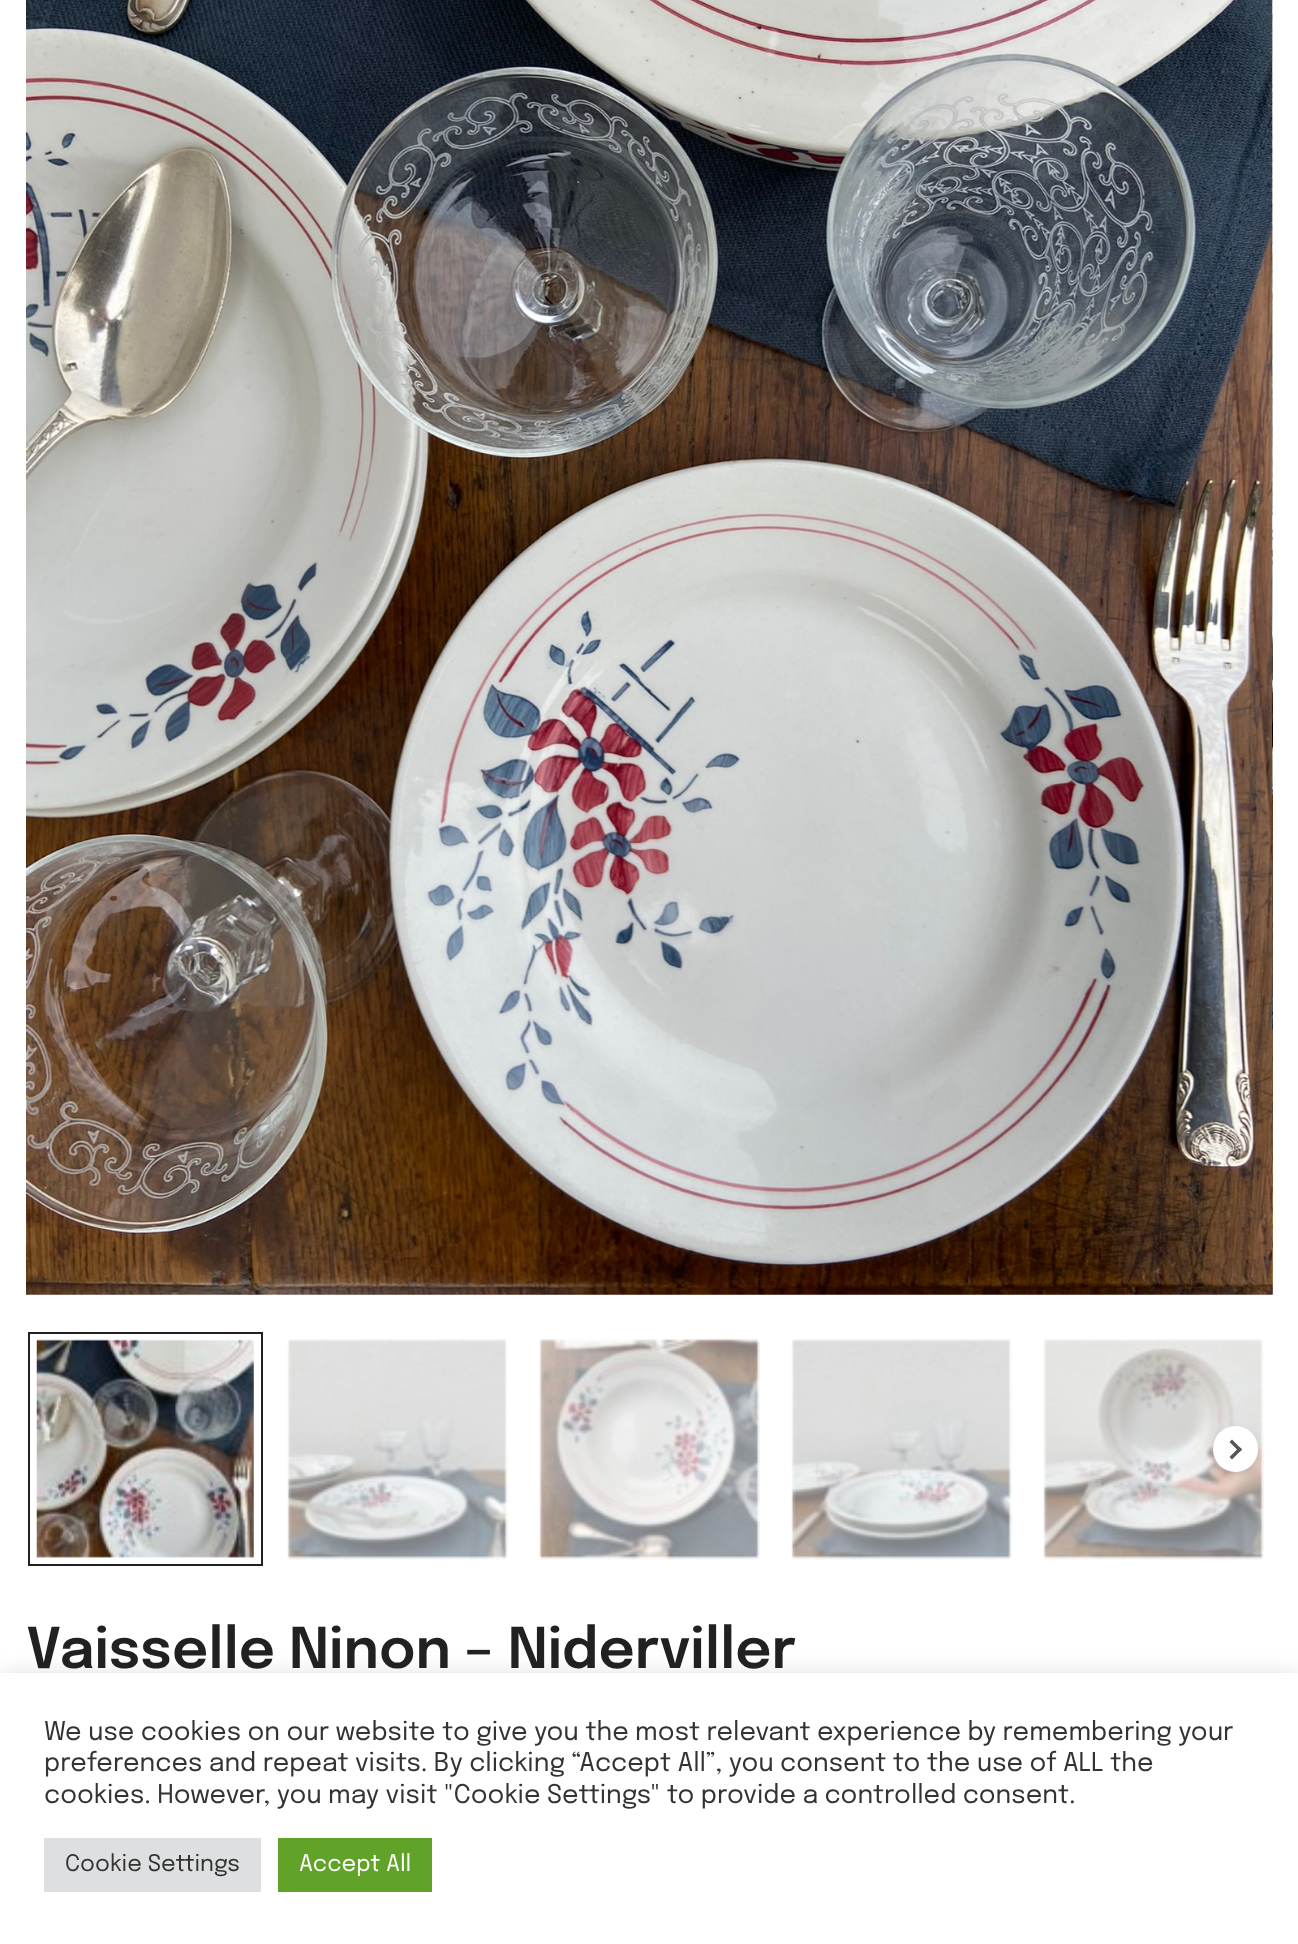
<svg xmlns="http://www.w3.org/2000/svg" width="1298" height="1944">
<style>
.a{font:600 56px Epilogue;fill:#212121}
.b{font:25.65px Epilogue;fill:#333}
.c{font:22.75px Epilogue;fill:#333}
.d{font:22.75px Epilogue;fill:#fff}
</style>
<rect width="100%" height="100%" fill="#fff"/>
<image href="1.png" x="26" y="0" width="1246" height="1295"/>
<image href="2.png" x="1272" y="0" width="1" height="1295"/>
<path fill="none" stroke="#212121" stroke-width="2" d="M29 1333h233v232H29z"/>
<image href="3.png" x="36" y="1339" width="218" height="219"/>
<image href="4.png" x="287" y="1339" width="221" height="221"/>
<image href="5.png" x="539" y="1339" width="221" height="221"/>
<image href="6.png" x="791" y="1339" width="221" height="221"/>
<image href="7.png" x="1043" y="1339" width="221" height="221"/>
<rect fill="#0000001a" filter="blur(4.5px)" x="1213" y="1430" width="45" height="45" rx="22.5"/>
<rect fill="#fff" x="1213" y="1426" width="45" height="46" rx="22.5"/>
<path fill="#555" d="M1242 1449.5l-10 10l-2.5-2.5l10-10z"/>
<path fill="#555" d="M1242 1449.5l-2.5 2.5l-10-10l2.5-2.5z"/>
<path fill="#acabab4d" filter="blur(9px)" d="M0 1671h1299v272H0z"/>
<path fill="#fff" d="M0 1673h1298v271H0z"/>
<path fill="#dedfe0" d="M44 1838h217v54H44z"/>
<path fill="#61a229" d="M278 1838h154v54H278z"/>
<text class="a" x="26" y="1668">Vaisselle Ninon – Niderviller</text>
<text class="b" x="44" y="1740">We use cookies on our website to give you the most relevant experience by remembering your</text>
<text class="b" x="44" y="1771">preferences and repeat visits. By clicking “Accept All”, you consent to the use of ALL the</text>
<text class="b" x="44" y="1803">cookies. However, you may visit "Cookie Settings" to provide a controlled consent.</text>
<text class="c" x="65" y="1871">Cookie Settings</text>
<text class="d" x="299" y="1871">Accept All</text>
</svg>
